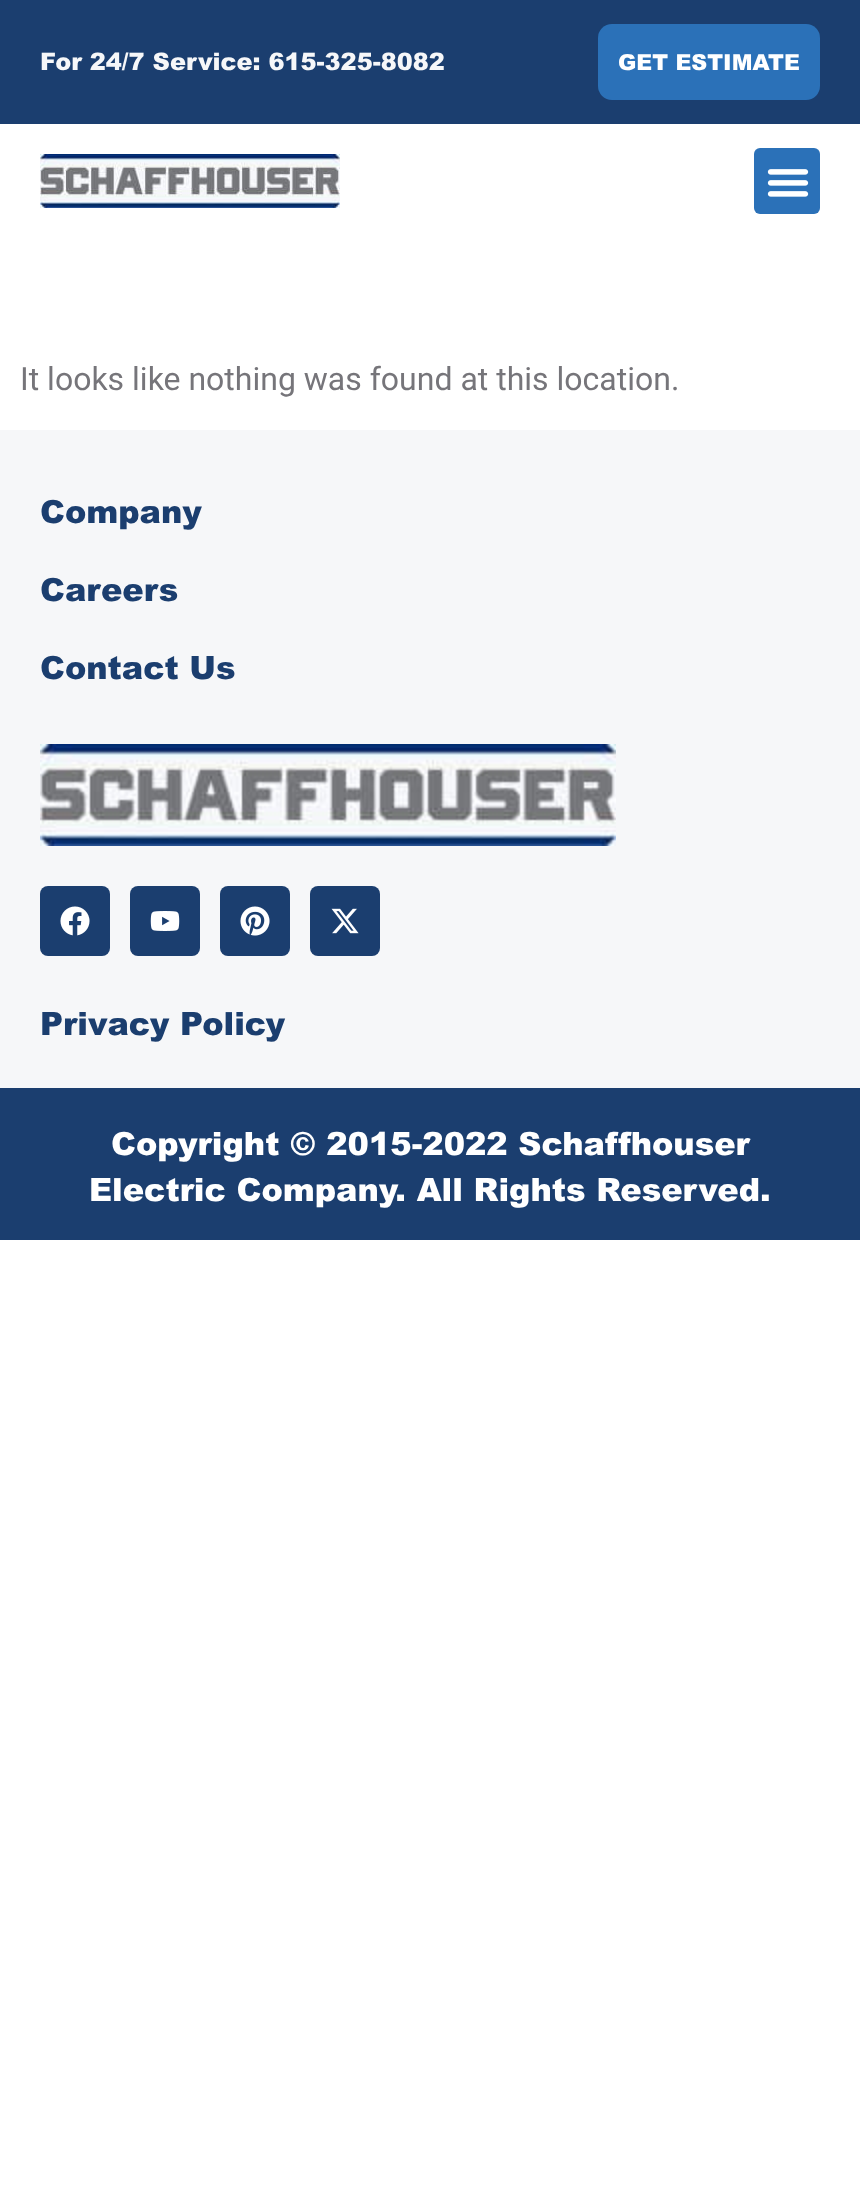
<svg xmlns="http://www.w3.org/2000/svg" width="860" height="2194">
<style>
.a{font:900 24px Arial;fill:#f6f7f9}
.b{font:900 22px Arial;fill:#fff}
.c{font:32px Roboto;fill:#76757a}
.d{font:900 32px Arial;fill:#1b3e6f}
.e{font:900 32px Arial;fill:#fff}
</style>
<rect width="100%" height="100%" fill="#fff"/>
<path fill="#1b3e6f" d="M0 0h860v124H0z"/>
<rect fill="#2b71b8" x="598" y="24" width="222" height="76" rx="14"/>
<image href="1.png" x="40" y="154" width="300" height="54"/>
<rect fill="#2b71b8" x="754" y="148" width="66" height="66" rx="6"/>
<image href="2.png" x="767" y="169" width="42" height="28"/>
<path fill="#f6f7f9" d="M0 430h860v658H0z"/>
<image href="3.png" x="40" y="744" width="576" height="102"/>
<rect fill="#1b3e6f" x="40" y="886" width="70" height="70" rx="8"/>
<image href="4.png" x="60" y="906" width="30" height="30"/>
<rect fill="#1b3e6f" x="130" y="886" width="70" height="70" rx="8"/>
<image href="5.png" x="150" y="911" width="30" height="20"/>
<rect fill="#1b3e6f" x="220" y="886" width="70" height="70" rx="8"/>
<image href="6.png" x="240" y="906" width="30" height="30"/>
<rect fill="#1b3e6f" x="310" y="886" width="70" height="70" rx="8"/>
<image href="7.png" x="331" y="908" width="28" height="26"/>
<path fill="#1b3e6f" d="M0 1088h860v152H0z"/>
<text class="a" x="40" y="70">For 24/7 Service: 615-325-8082</text>
<text class="b" x="618" y="70">GET ESTIMATE</text>
<text class="c" x="20" y="390">It looks like nothing was found at this location.</text>
<text class="d" x="40" y="523">Company</text>
<text class="d" x="40" y="601">Careers</text>
<text class="d" x="40" y="679">Contact Us</text>
<text class="d" x="40" y="1035">Privacy Policy</text>
<text class="e" x="111" y="1155">Copyright © 2015-2022 Schaffhouser</text>
<text class="e" x="89" y="1201">Electric Company. All Rights Reserved.</text>
</svg>
